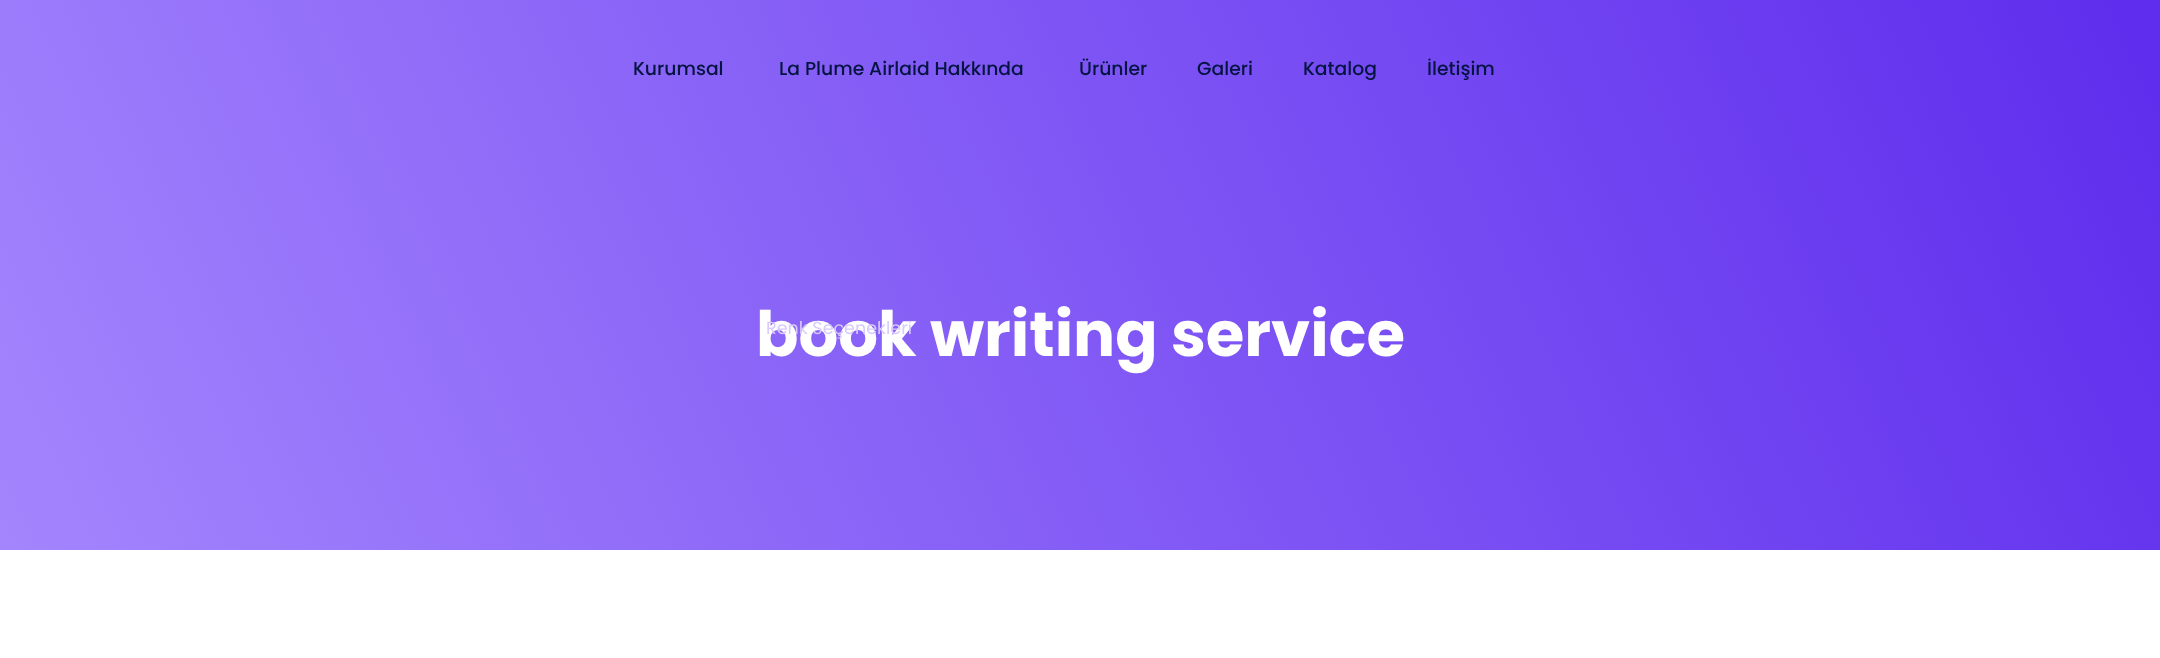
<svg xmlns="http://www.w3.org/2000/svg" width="2160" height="658">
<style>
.a{font:500 18.75px Poppins;fill:#051441}
.b{font:bold 62.5px Poppins;fill:#fff}
.c{font:17.5px Poppins;fill:#d8cbfc}
</style>
<defs>
<linearGradient id="g1" gradientUnits="userSpaceOnUse" x1="2072" y1="-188" x2="88" y2="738"><stop offset="0" stop-color="#5e2ced"/><stop offset="1" stop-color="#a485fd"/></linearGradient>
</defs>
<rect width="100%" height="100%" fill="#fff"/>
<path fill="url(#g1)" d="M0 0h2160v550H0z"/>
<text class="a" x="633" y="75">Kurumsal</text>
<text class="a" x="779" y="75">La Plume Airlaid Hakkında</text>
<text class="a" x="1079" y="75">Ürünler</text>
<text class="a" x="1197" y="75">Galeri</text>
<text class="a" x="1303" y="75">Katalog</text>
<text class="a" x="1427" y="75">İletişim</text>
<text class="b" x="756" y="356">book writing service</text>
<text class="c" x="766" y="334">Renk Seçenekleri</text>
</svg>
